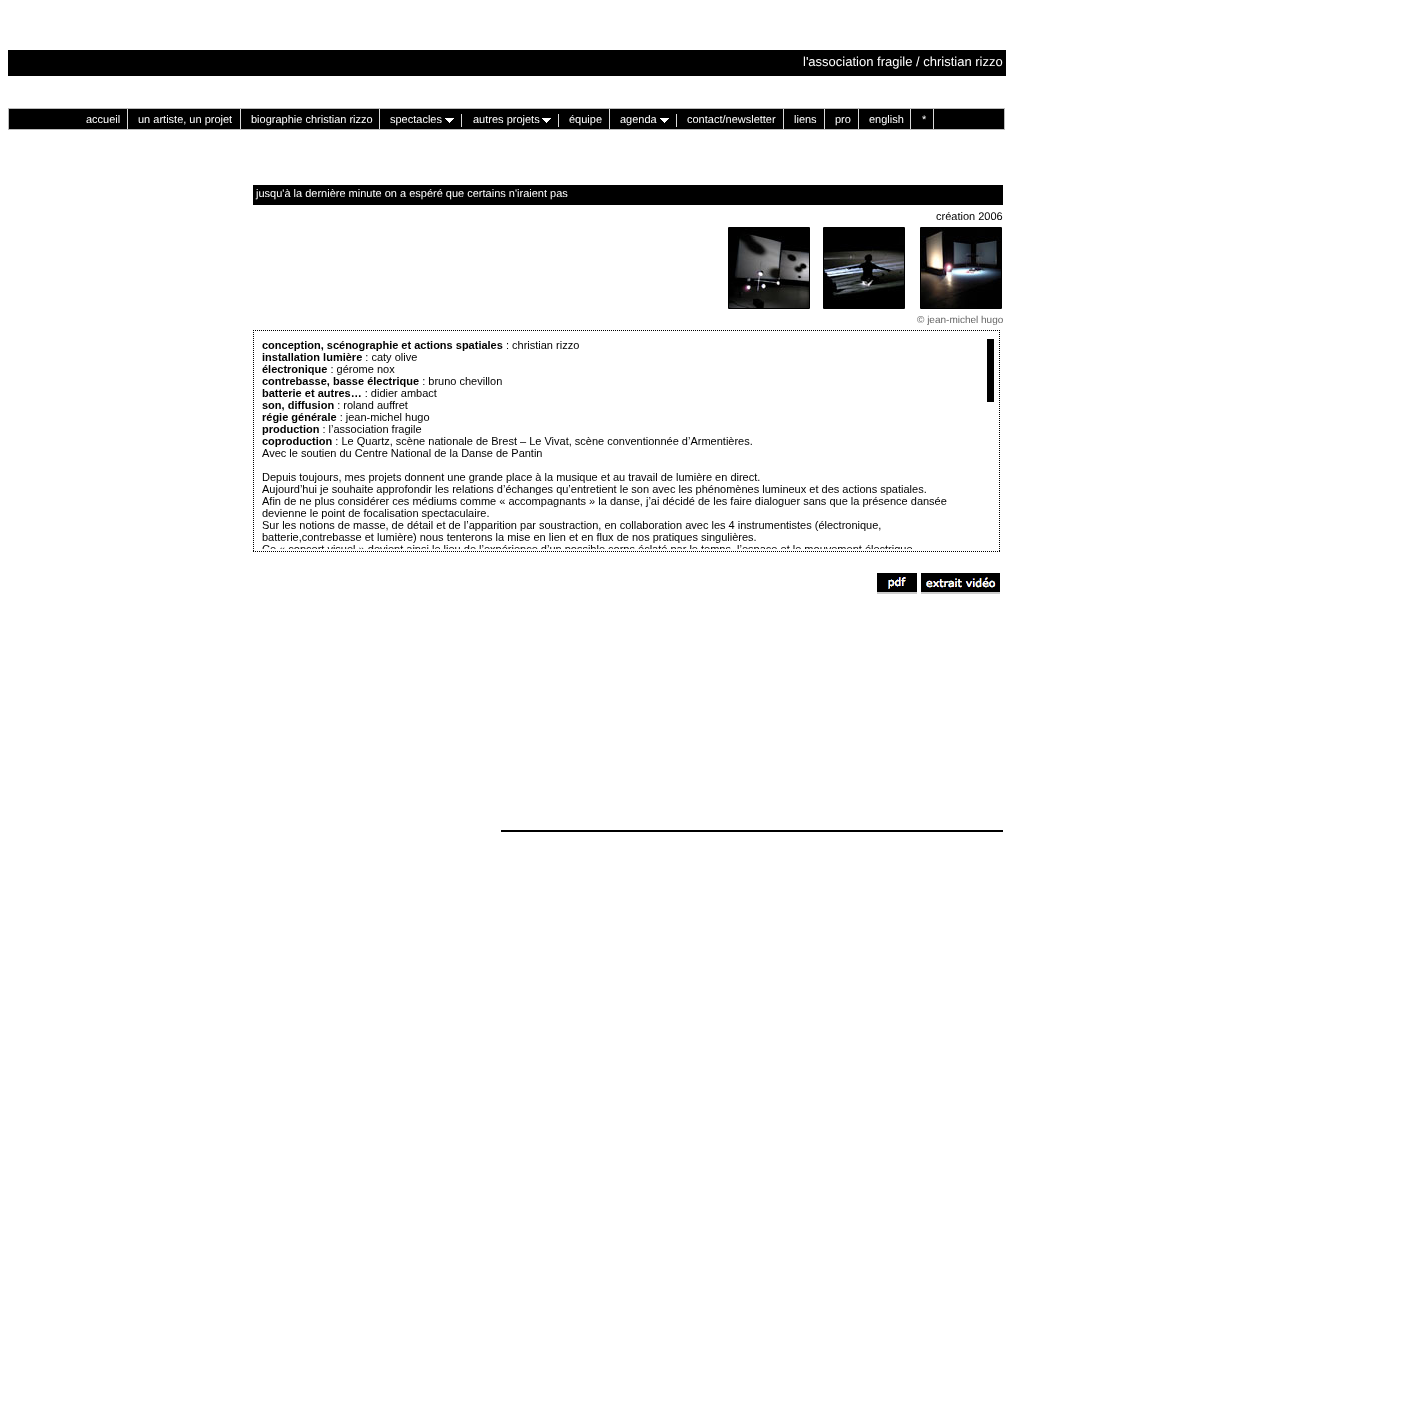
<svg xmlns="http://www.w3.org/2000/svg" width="1408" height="1408">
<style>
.a{font:13px Liberation Sans;fill:#fff}
.b{font:11px Liberation Sans;fill:#fff}
.c{font:11px Liberation Sans;fill:#000}
.d{font:10px Liberation Sans;fill:#666}
</style>
<rect width="100%" height="100%" fill="#fff"/>
<path fill="#000" d="M8 50h998v26H8z"/>
<path fill="#000" stroke="#bbb" d="M8.5 108.5h996v21H8.5z"/>
<path fill="#dadada" d="M127 109h1v20H127z"/>
<path fill="#dadada" d="M240 109h1v20H240z"/>
<path fill="#dadada" d="M379 109h1v20H379z"/>
<path fill="#dadada" d="M461 114h1v13H461z"/>
<image href="1.png" x="445" y="118" width="9" height="5"/>
<path fill="#dadada" d="M558 114h1v13H558z"/>
<image href="1.png" x="542" y="118" width="9" height="5"/>
<path fill="#dadada" d="M609 109h1v20H609z"/>
<path fill="#dadada" d="M676 114h1v13H676z"/>
<image href="1.png" x="660" y="118" width="9" height="5"/>
<path fill="#dadada" d="M783 109h1v20H783z"/>
<path fill="#dadada" d="M824 109h1v20H824z"/>
<path fill="#dadada" d="M858 109h1v20H858z"/>
<path fill="#dadada" d="M910 109h1v20H910z"/>
<path fill="#dadada" d="M933 109h1v20H933z"/>
<path fill="#000" d="M253 185h750v20H253z"/>
<path fill="none" stroke="#000" d="M728.5 227.5h81v81H728.5z"/>
<image href="2.png" x="729" y="228" width="80" height="80"/>
<path fill="none" stroke="#000" d="M823.5 227.5h81v81H823.5z"/>
<image href="3.png" x="824" y="228" width="80" height="80"/>
<path fill="none" stroke="#000" d="M920.5 227.5h81v81H920.5z"/>
<image href="4.png" x="921" y="228" width="80" height="80"/>
<path fill="none" stroke="#000" stroke-dasharray="1 1" d="M253 330.5h747"/>
<path fill="none" stroke="#000" stroke-dasharray="1 1" d="M999.5 330v222"/>
<path fill="none" stroke="#000" stroke-dasharray="1 1" d="M253 551.5h747"/>
<path fill="none" stroke="#000" stroke-dasharray="1 1" d="M253.5 330v222"/>
<image href="5.png" x="262" y="339" width="732" height="210"/>
<image href="6.png" x="877" y="573" width="40" height="19"/>
<image href="7.png" x="921" y="573" width="79" height="19"/>
<path fill="#ccc" d="M877 592h40v2H877z"/>
<path fill="#ccc" d="M921 592h79v2H921z"/>
<path fill="#000" d="M501 830h502v2H501z"/>
<text class="a" x="803" y="66">l'association fragile / christian rizzo</text>
<text class="b" x="86" y="123">accueil</text>
<text class="b" x="138" y="123">un artiste, un projet</text>
<text class="b" x="251" y="123">biographie christian rizzo</text>
<text class="b" x="390" y="123">spectacles</text>
<text class="b" x="473" y="123">autres projets</text>
<text class="b" x="569" y="123">équipe</text>
<text class="b" x="620" y="123">agenda</text>
<text class="b" x="687" y="123">contact/newsletter</text>
<text class="b" x="794" y="123">liens</text>
<text class="b" x="835" y="123">pro</text>
<text class="b" x="869" y="123">english</text>
<text class="b" x="922" y="123">*</text>
<text class="b" x="256" y="197">jusqu'à la dernière minute on a espéré que certains n'iraient pas</text>
<text class="c" x="936" y="220">création 2006</text>
<text class="d" x="917" y="323">© jean-michel hugo</text>
</svg>
